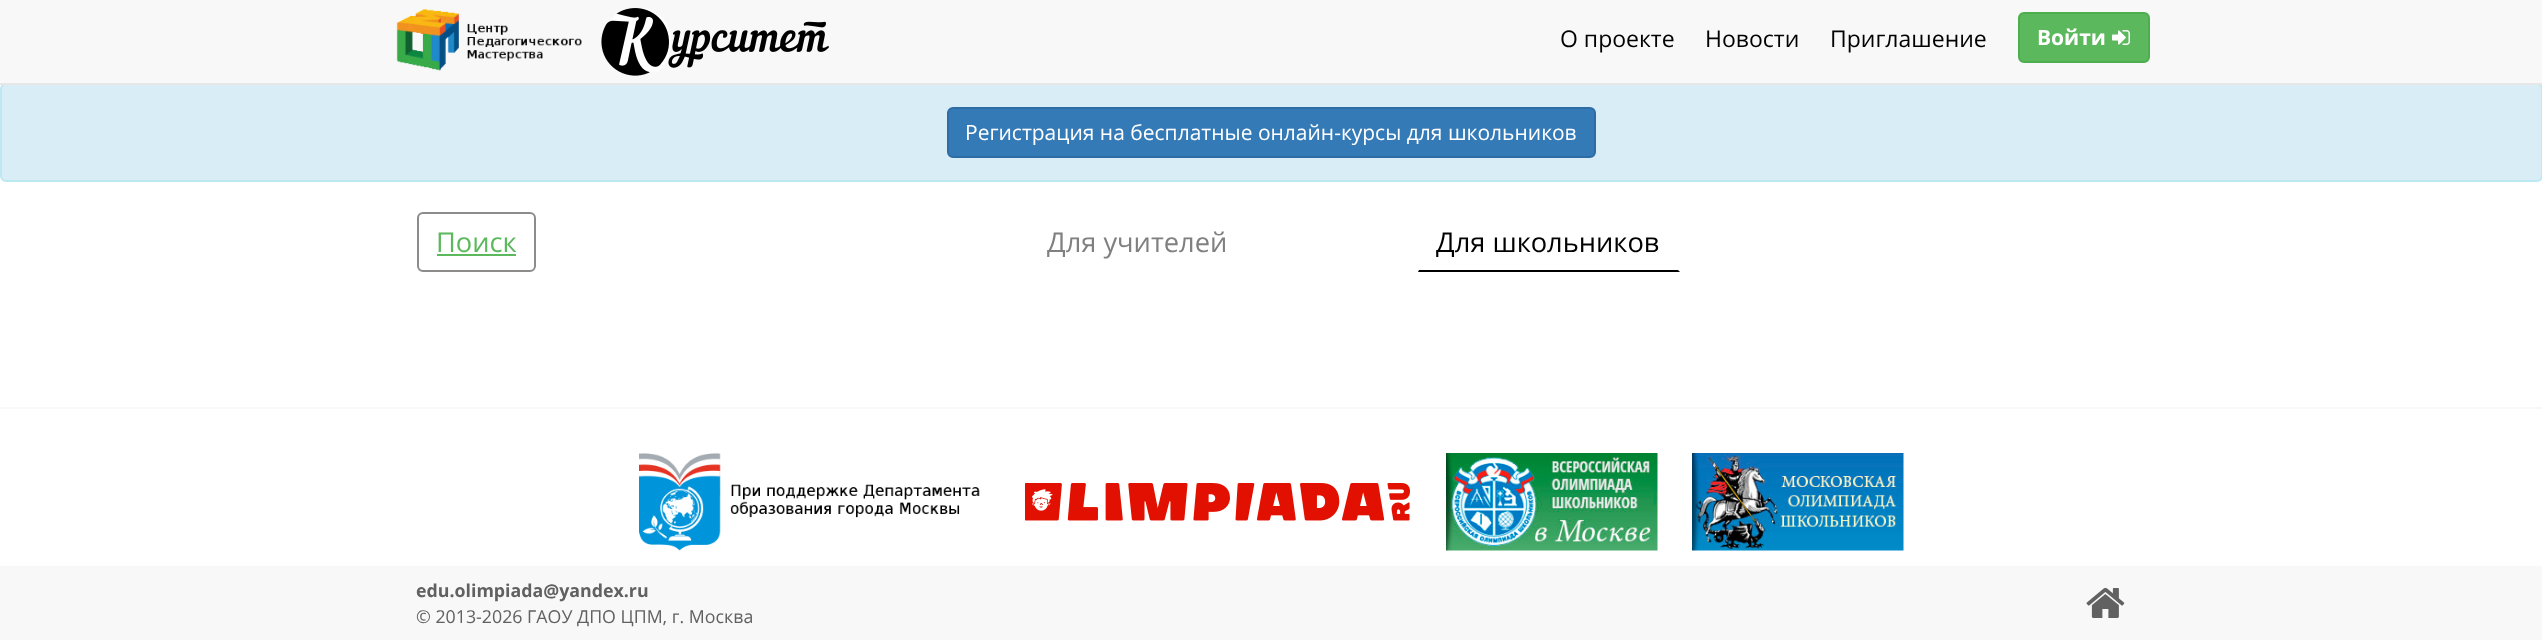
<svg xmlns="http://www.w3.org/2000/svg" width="2542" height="640">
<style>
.a{font:23px Open Sans;fill:#000}
.b{font:bold 21px Open Sans;fill:#fff}
.c{font:21px Open Sans;fill:#fff}
.d{font:27.25px Open Sans;fill:#5cb85c}
.e{font:27.25px Open Sans;fill:#808080}
.f{font:27.25px Open Sans;fill:#000}
.g{font:bold 17.8px Open Sans;fill:#616161}
.h{font:17.8px Open Sans;fill:#616161}
</style>
<rect width="100%" height="100%" fill="#fff"/>
<path fill="#f8f8f8" d="M0 0h2542v83H0z"/>
<rect fill="#d9edf7" stroke="#bce8f1" stroke-width="2" x="1" y="84" width="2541" height="97" rx="5"/>
<path fill="#e7e7e7" d="M0 83h2542v2H0z"/>
<image href="1.png" x="396" y="8" width="186" height="63"/>
<image href="2.png" x="601" y="8" width="228" height="68"/>
<rect fill="#5cb85c" stroke="#4cae4c" stroke-width="2" x="2019" y="13" width="130" height="49" rx="5"/>
<image href="3.png" x="2112" y="30" width="18" height="15"/>
<rect fill="#337ab7" stroke="#2e6da4" stroke-width="2" x="948" y="108" width="647" height="49" rx="5"/>
<rect fill="none" stroke="#8e8b8b" stroke-width="2" x="418" y="213" width="117" height="58" rx="5"/>
<path fill="#5cb85c" d="M437 254h79v2H437z"/>
<path fill="#000" d="M1680 272h-262l1-2h259z"/>
<path fill="#f8f8f8" d="M0 407h2542v2H0z"/>
<image href="4.png" x="639" y="453" width="341" height="98"/>
<image href="5.png" x="1025" y="483" width="385" height="38"/>
<image href="6.png" x="1446" y="453" width="212" height="98"/>
<image href="7.png" x="1692" y="453" width="212" height="98"/>
<path fill="#f8f8f8" d="M0 566h2542v74H0z"/>
<image href="8.png" x="2086" y="587" width="39" height="31"/>
<text class="a" x="1560" y="47">О проекте</text>
<text class="a" x="1705" y="47">Новости</text>
<text class="a" x="1830" y="47">Приглашение</text>
<text class="b" x="2037" y="45">Войти</text>
<text class="c" x="965" y="140">Регистрация на бесплатные онлайн-курсы для школьников</text>
<text class="d" x="436" y="252">Поиск</text>
<text class="e" x="1047" y="252">Для учителей</text>
<text class="f" x="1436" y="252">Для школьников</text>
<text class="g" x="416" y="597">edu.olimpiada@yandex.ru</text>
<text class="h" x="416" y="623">© 2013-2026 ГАОУ ДПО ЦПМ, г. Москва</text>
</svg>
